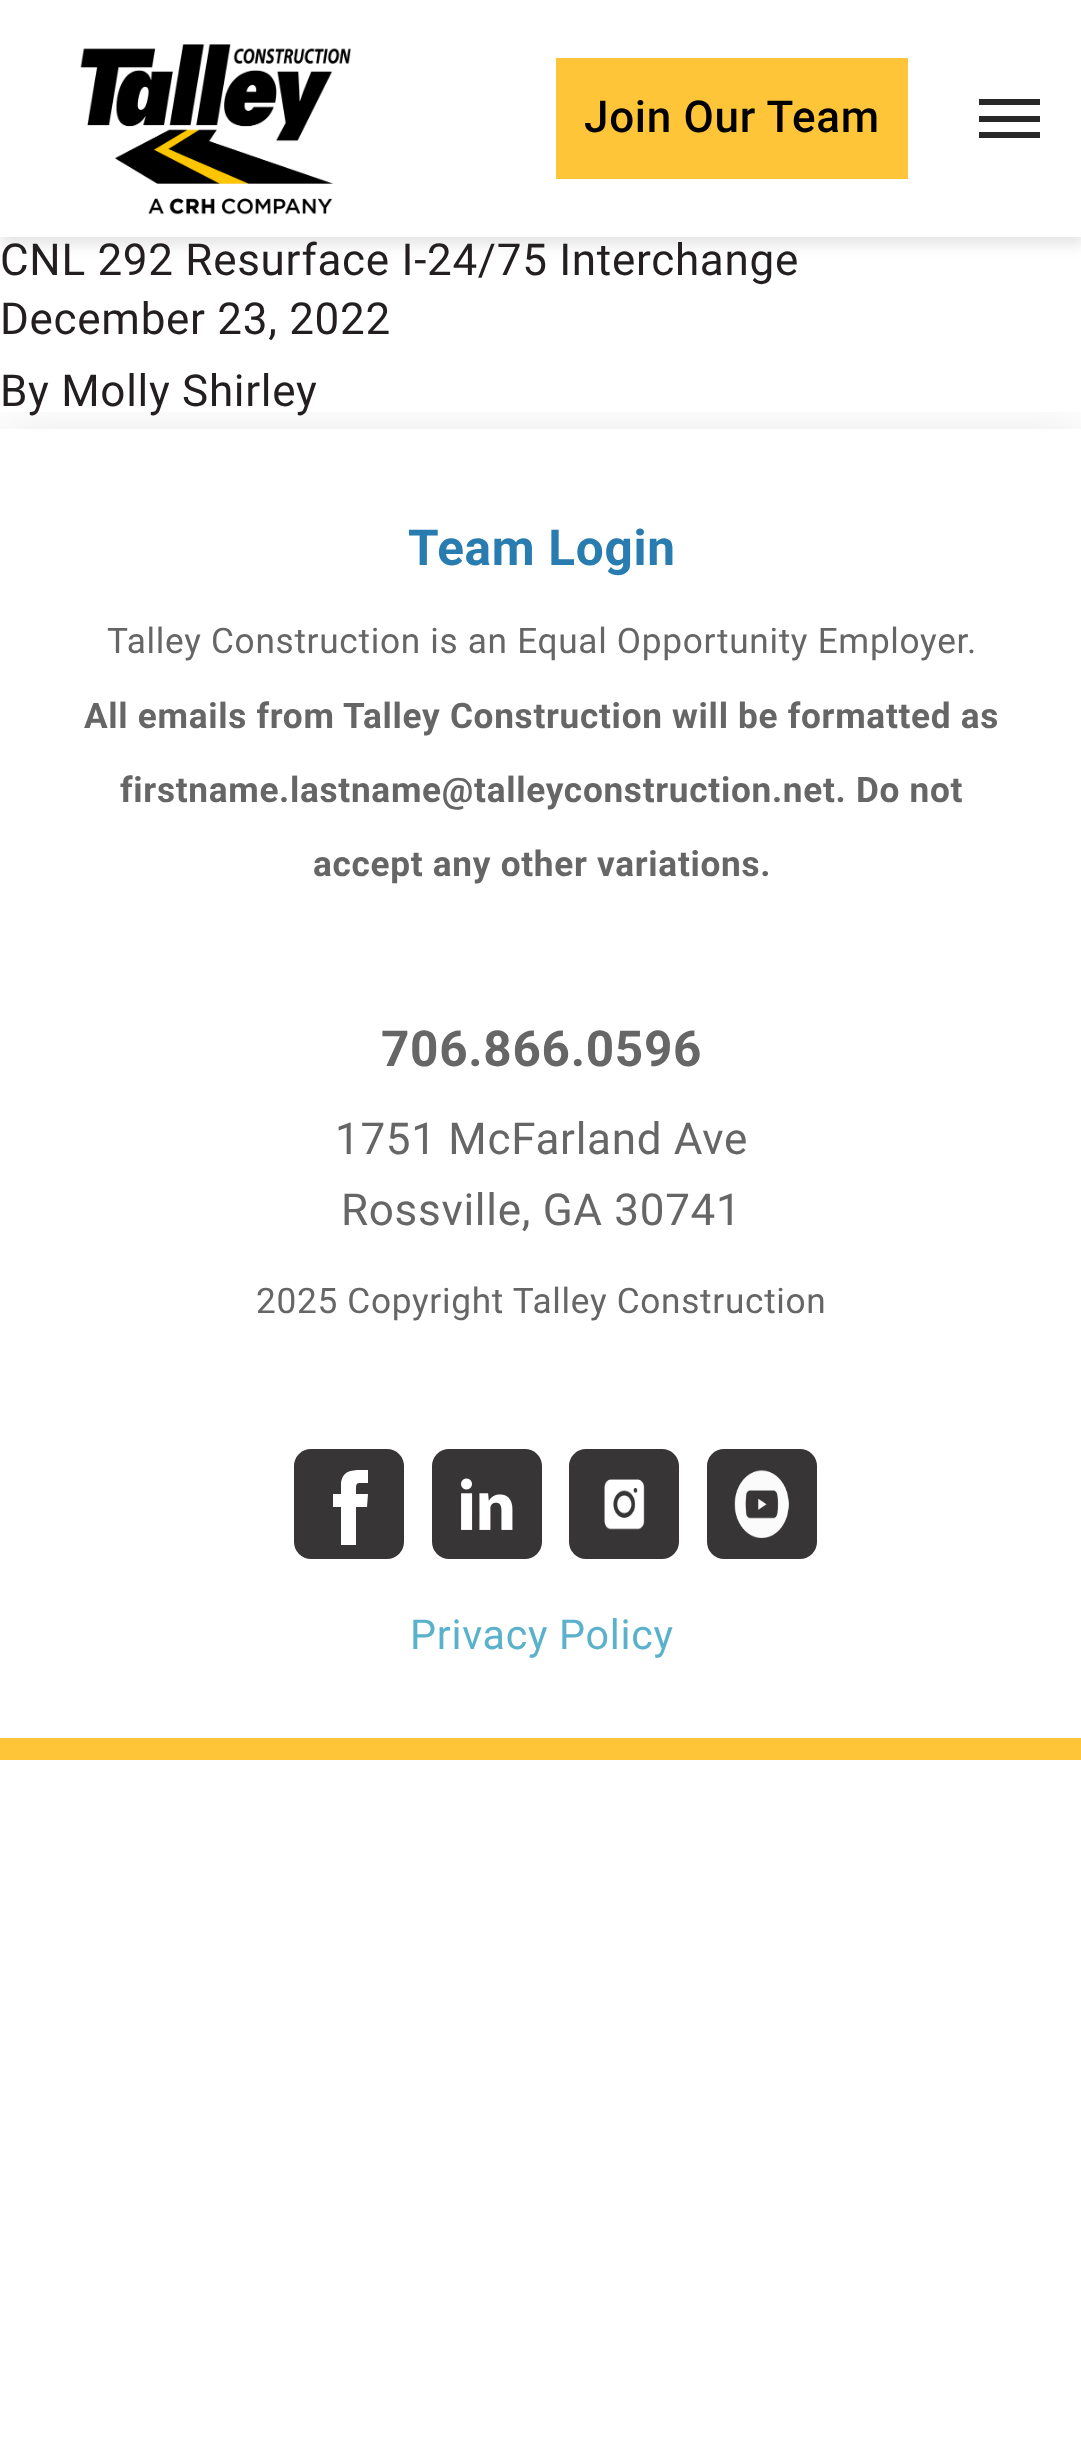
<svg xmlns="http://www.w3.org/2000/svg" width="1081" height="2463">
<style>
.a{font:500 44px Roboto;letter-spacing:0.7px;fill:#000}
.b{font:44px Roboto;letter-spacing:0.7px;fill:#231f20}
.c{font:bold 49.5px Roboto;letter-spacing:0.7px;fill:#297caf}
.d{font:35.2px Roboto;letter-spacing:0.7px;fill:#666}
.e{font:bold 35.2px Roboto;letter-spacing:0.7px;fill:#666}
.f{font:bold 49.5px Roboto;letter-spacing:0.7px;fill:#666}
.g{font:44px Roboto;letter-spacing:0.7px;fill:#666}
.h{font:41.25px Roboto;letter-spacing:0.7px;fill:#5ab1cb}
</style>
<defs>
<clipPath id="clip1"><path d="M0 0h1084v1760H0z"/></clipPath>
<clipPath id="clip2"><path d="M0 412h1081v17H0z"/></clipPath>
</defs>
<rect width="100%" height="100%" fill="#fff"/>
<path fill="#0000001a" filter="blur(7px)" d="M0 8h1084v237H0z"/>
<path fill="#fff" d="M0 0h1081v237H0z"/>
<image href="1.png" x="80" y="44" width="271" height="171"/>
<path fill="#fec538" d="M556 58h352v121H556z"/>
<path fill="#282828" d="M979 99h61v6H979z"/>
<path fill="#282828" d="M979 116h61v6H979z"/>
<path fill="#282828" d="M979 132h61v6H979z"/>
<g clip-path="url(#clip1)">
<g clip-path="url(#clip2)">
<path fill="#0000001a" filter="blur(27.5px)" d="M0 435h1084v1331H0z"/>
</g>
</g>
<path fill="#fec538" d="M0 1738h1081v22H0z"/>
<rect fill="#373535" x="294" y="1449" width="110" height="110" rx="17"/>
<path fill="#fff" d="M368 1494h-12c0-13-1-11 12-11v-13c-12 0-25-2-27 13v11h-8v13h8v38h15v-38h11z"/>
<rect fill="#373535" x="432" y="1449" width="110" height="110" rx="17"/>
<image href="2.png" x="461" y="1478" width="52" height="52"/>
<rect fill="#373535" x="569" y="1449" width="110" height="110" rx="17"/>
<image href="3.png" x="604" y="1479" width="41" height="51"/>
<rect fill="#373535" x="707" y="1449" width="110" height="110" rx="17"/>
<image href="4.png" x="734" y="1470" width="55" height="68"/>
<text class="a" x="584" y="132">Join Our Team</text>
<text class="b" x="0" y="275">CNL 292 Resurface I-24/75 Interchange</text>
<text class="b" x="0" y="334">December 23, 2022</text>
<text class="b" x="0" y="406">By Molly Shirley</text>
<text class="c" x="408" y="565">Team Login</text>
<text class="d" x="107" y="653">Talley Construction is an Equal Opportunity Employer.</text>
<text class="e" x="84" y="728">All emails from Talley Construction will be formatted as</text>
<text class="e" x="120" y="802">firstname.lastname@talleyconstruction.net. Do not</text>
<text class="e" x="313" y="876">accept any other variations.</text>
<text class="f" x="381" y="1066">706.866.0596</text>
<text class="g" x="335" y="1154">1751 McFarland Ave</text>
<text class="g" x="341" y="1225">Rossville, GA 30741</text>
<text class="d" x="256" y="1313">2025 Copyright Talley Construction</text>
<text class="h" x="410" y="1649">Privacy Policy</text>
</svg>
